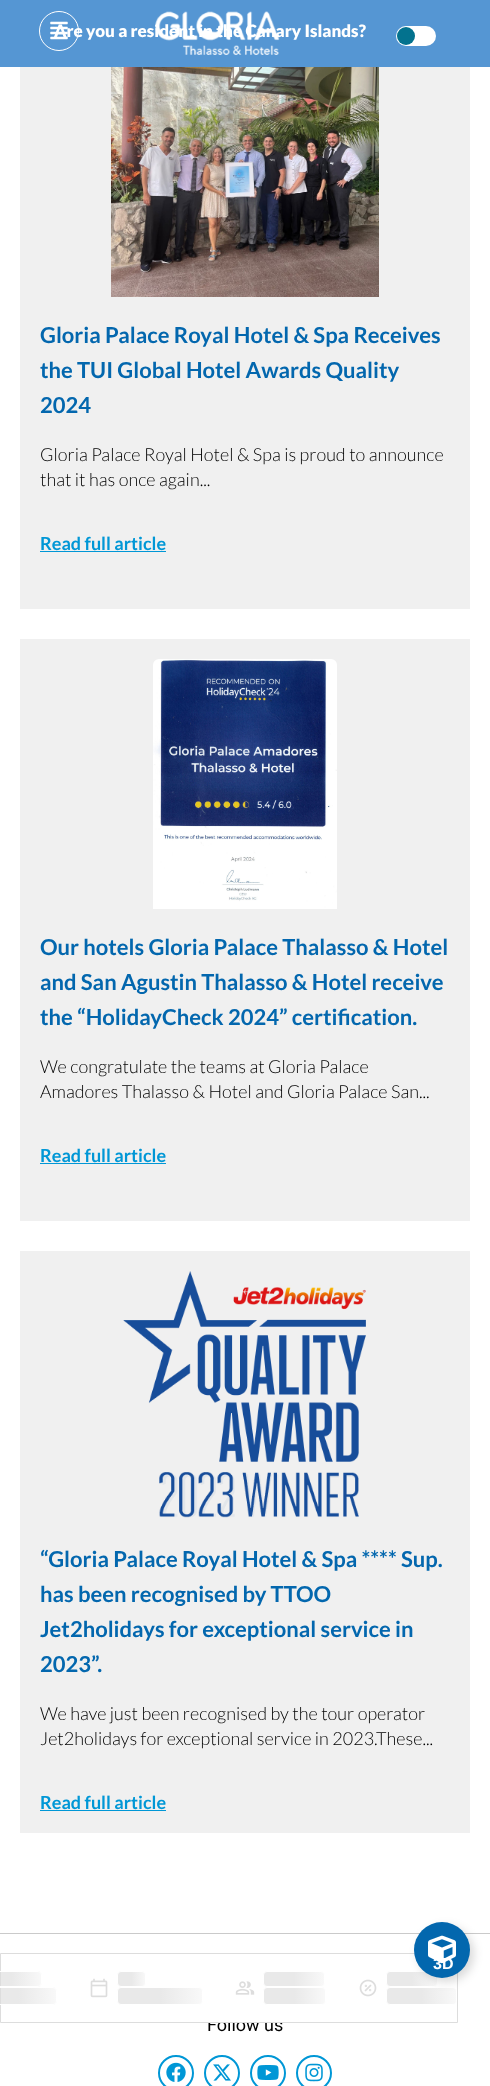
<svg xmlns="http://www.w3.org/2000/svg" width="490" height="2086">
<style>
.a{font:900 17px Lato;fill:#fff}
.b{font:bold 22px Lato;fill:#0367ae}
.c{font:300 18px Lato;fill:#000}
.d{font:bold 18px Lato;fill:#0097d6}
.e{font:18px Roboto;fill:#000}
.f{font:bold 16px Liberation Sans;fill:#fff}
</style>
<defs>
<linearGradient id="g1" gradientUnits="userSpaceOnUse" x1="386" y1="1996" x2="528" y2="1996"><stop offset="0.25" stop-color="#e9e9e9"/><stop offset="0.5" stop-color="#f9f9f9"/><stop offset="0.75" stop-color="#e9e9e9"/></linearGradient>
<linearGradient id="g2" gradientUnits="userSpaceOnUse" x1="386" y1="1979" x2="490" y2="1979"><stop offset="0.25" stop-color="#e9e9e9"/><stop offset="0.5" stop-color="#f9f9f9"/><stop offset="0.75" stop-color="#e9e9e9"/></linearGradient>
<linearGradient id="g3" gradientUnits="userSpaceOnUse" x1="263" y1="1996" x2="389" y2="1996"><stop offset="0.25" stop-color="#e9e9e9"/><stop offset="0.5" stop-color="#f9f9f9"/><stop offset="0.75" stop-color="#e9e9e9"/></linearGradient>
<linearGradient id="g4" gradientUnits="userSpaceOnUse" x1="263" y1="1979" x2="387" y2="1979"><stop offset="0.25" stop-color="#e9e9e9"/><stop offset="0.5" stop-color="#f9f9f9"/><stop offset="0.75" stop-color="#e9e9e9"/></linearGradient>
<linearGradient id="g5" gradientUnits="userSpaceOnUse" x1="117" y1="1996" x2="289" y2="1996"><stop offset="0.25" stop-color="#e9e9e9"/><stop offset="0.5" stop-color="#f9f9f9"/><stop offset="0.75" stop-color="#e9e9e9"/></linearGradient>
<linearGradient id="g6" gradientUnits="userSpaceOnUse" x1="117" y1="1979" x2="175" y2="1979"><stop offset="0.25" stop-color="#e9e9e9"/><stop offset="0.5" stop-color="#f9f9f9"/><stop offset="0.75" stop-color="#e9e9e9"/></linearGradient>
<linearGradient id="g7" gradientUnits="userSpaceOnUse" x1="-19" y1="1996" x2="133" y2="1996"><stop offset="0.25" stop-color="#e9e9e9"/><stop offset="0.5" stop-color="#f9f9f9"/><stop offset="0.75" stop-color="#e9e9e9"/></linearGradient>
<linearGradient id="g8" gradientUnits="userSpaceOnUse" x1="-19" y1="1979" x2="103" y2="1979"><stop offset="0.25" stop-color="#e9e9e9"/><stop offset="0.5" stop-color="#f9f9f9"/><stop offset="0.75" stop-color="#e9e9e9"/></linearGradient>
</defs>
<rect width="100%" height="100%" fill="#fff"/>
<path fill="#5596d3" d="M0 0h490v67H0z"/>
<circle fill="none" stroke="#fff" cx="59" cy="31" r="19.5"/>
<image href="1.png" x="50" y="21" width="18" height="19"/>
<image href="2.png" x="155" y="11" width="125" height="44"/>
<rect fill="#fff" x="396" y="26" width="40" height="20" rx="10"/>
<circle fill="#03728e" cx="406" cy="36" r="9"/>
<path fill="#f0f0f0" d="M20 67h450v542H20z"/>
<image href="6.png" x="111" y="67" width="268" height="230"/>
<path fill="#0097d6" d="M40 551h126v1H40z"/>
<path fill="#f0f0f0" d="M20 639h450v582H20z"/>
<image href="7.png" x="153" y="659" width="184" height="250"/>
<path fill="#0097d6" d="M40 1163h126v1H40z"/>
<path fill="#f0f0f0" d="M20 1251h450v582H20z"/>
<image href="8.png" x="123" y="1271" width="243" height="247"/>
<path fill="#0097d6" d="M40 1810h126v1H40z"/>
<path fill="#cacaca" d="M0 1933h490v1H0z"/>
<circle fill="none" stroke="#0097d6" stroke-width="2" cx="176" cy="2073" r="17"/>
<image href="10.png" x="166" y="2062" width="20" height="20"/>
<circle fill="none" stroke="#0097d6" stroke-width="2" cx="222" cy="2073" r="17"/>
<image href="11.png" x="213" y="2064" width="18" height="17"/>
<circle fill="none" stroke="#0097d6" stroke-width="2" cx="268" cy="2073" r="17"/>
<image href="12.png" x="257" y="2065" width="22" height="15"/>
<circle fill="none" stroke="#0097d6" stroke-width="2" cx="314" cy="2073" r="17"/>
<image href="13.png" x="305" y="2063" width="18" height="19"/>
<text class="a" x="54" y="37">Are you a resident in the Canary Islands?</text>
<text class="b" x="40" y="343">Gloria Palace Royal Hotel &amp; Spa Receives</text>
<text class="b" x="40" y="378">the TUI Global Hotel Awards Quality</text>
<text class="b" x="40" y="413">2024</text>
<text class="c" x="40" y="461">Gloria Palace Royal Hotel &amp; Spa is proud to announce</text>
<text class="c" x="40" y="486">that it has once again...</text>
<text class="d" x="40" y="550">Read full article</text>
<text class="b" x="40" y="955">Our hotels Gloria Palace Thalasso &amp; Hotel</text>
<text class="b" x="40" y="990">and San Agustin Thalasso &amp; Hotel receive</text>
<text class="b" x="40" y="1025">the “HolidayCheck 2024” certification.</text>
<text class="c" x="40" y="1073">We congratulate the teams at Gloria Palace</text>
<text class="c" x="40" y="1098">Amadores Thalasso &amp; Hotel and Gloria Palace San...</text>
<text class="d" x="40" y="1162">Read full article</text>
<text class="b" x="40" y="1567">“Gloria Palace Royal Hotel &amp; Spa **** Sup.</text>
<text class="b" x="40" y="1602">has been recognised by TTOO</text>
<text class="b" x="40" y="1637">Jet2holidays for exceptional service in</text>
<text class="b" x="40" y="1672">2023”.</text>
<text class="c" x="40" y="1720">We have just been recognised by the tour operator</text>
<text class="c" x="40" y="1745">Jet2holidays for exceptional service in 2023.These...</text>
<text class="d" x="40" y="1809">Read full article</text>
<text class="e" x="207" y="2031">Follow us</text>
<path fill="#fff" d="M208 2017h73v5H208z"/>
<path fill="none" stroke="#ddd" d="M0.5 1953.5h457v69H0.5z"/>
<rect fill="url(#g1)" stroke="#fff" x="386.5" y="1987.5" width="70" height="17" rx="3.5"/>
<rect fill="url(#g2)" stroke="#fff" x="386.5" y="1971.5" width="51" height="15" rx="3.5"/>
<rect fill="#00000026" filter="blur(5px)" x="418" y="1926" width="56" height="56" rx="28"/>
<circle fill="#0367ae" cx="442" cy="1950" r="28"/>
<image href="9.png" x="428" y="1935" width="28" height="29"/>
<text class="f" x="433" y="1969">3D</text>
<rect fill="url(#g3)" stroke="#fff" x="263.5" y="1987.5" width="62" height="17" rx="3.5"/>
<rect fill="url(#g4)" stroke="#fff" x="263.5" y="1971.5" width="61" height="15" rx="3.5"/>
<rect fill="url(#g5)" stroke="#fff" x="117.5" y="1987.5" width="85" height="17" rx="3.5"/>
<rect fill="url(#g6)" stroke="#fff" x="117.5" y="1971.5" width="28" height="15" rx="3.5"/>
<path fill="url(#g7)" d="M1 1987h52c2 0 4 2 4 4v10c0 2-2 4-4 4h-52z"/>
<rect fill="none" stroke="#fff" x="-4.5" y="1987.5" width="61" height="17" rx="3.5"/>
<path fill="url(#g8)" d="M1 1971h37c2 0 4 2 4 4v8c0 2-2 4-4 4h-37z"/>
<rect fill="none" stroke="#fff" x="-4.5" y="1971.5" width="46" height="15" rx="3.5"/>
<image href="5.png" x="359" y="1979" width="18" height="18"/>
<image href="4.png" x="235" y="1981" width="20" height="14"/>
<image href="3.png" x="90" y="1978" width="18" height="20"/>
</svg>
